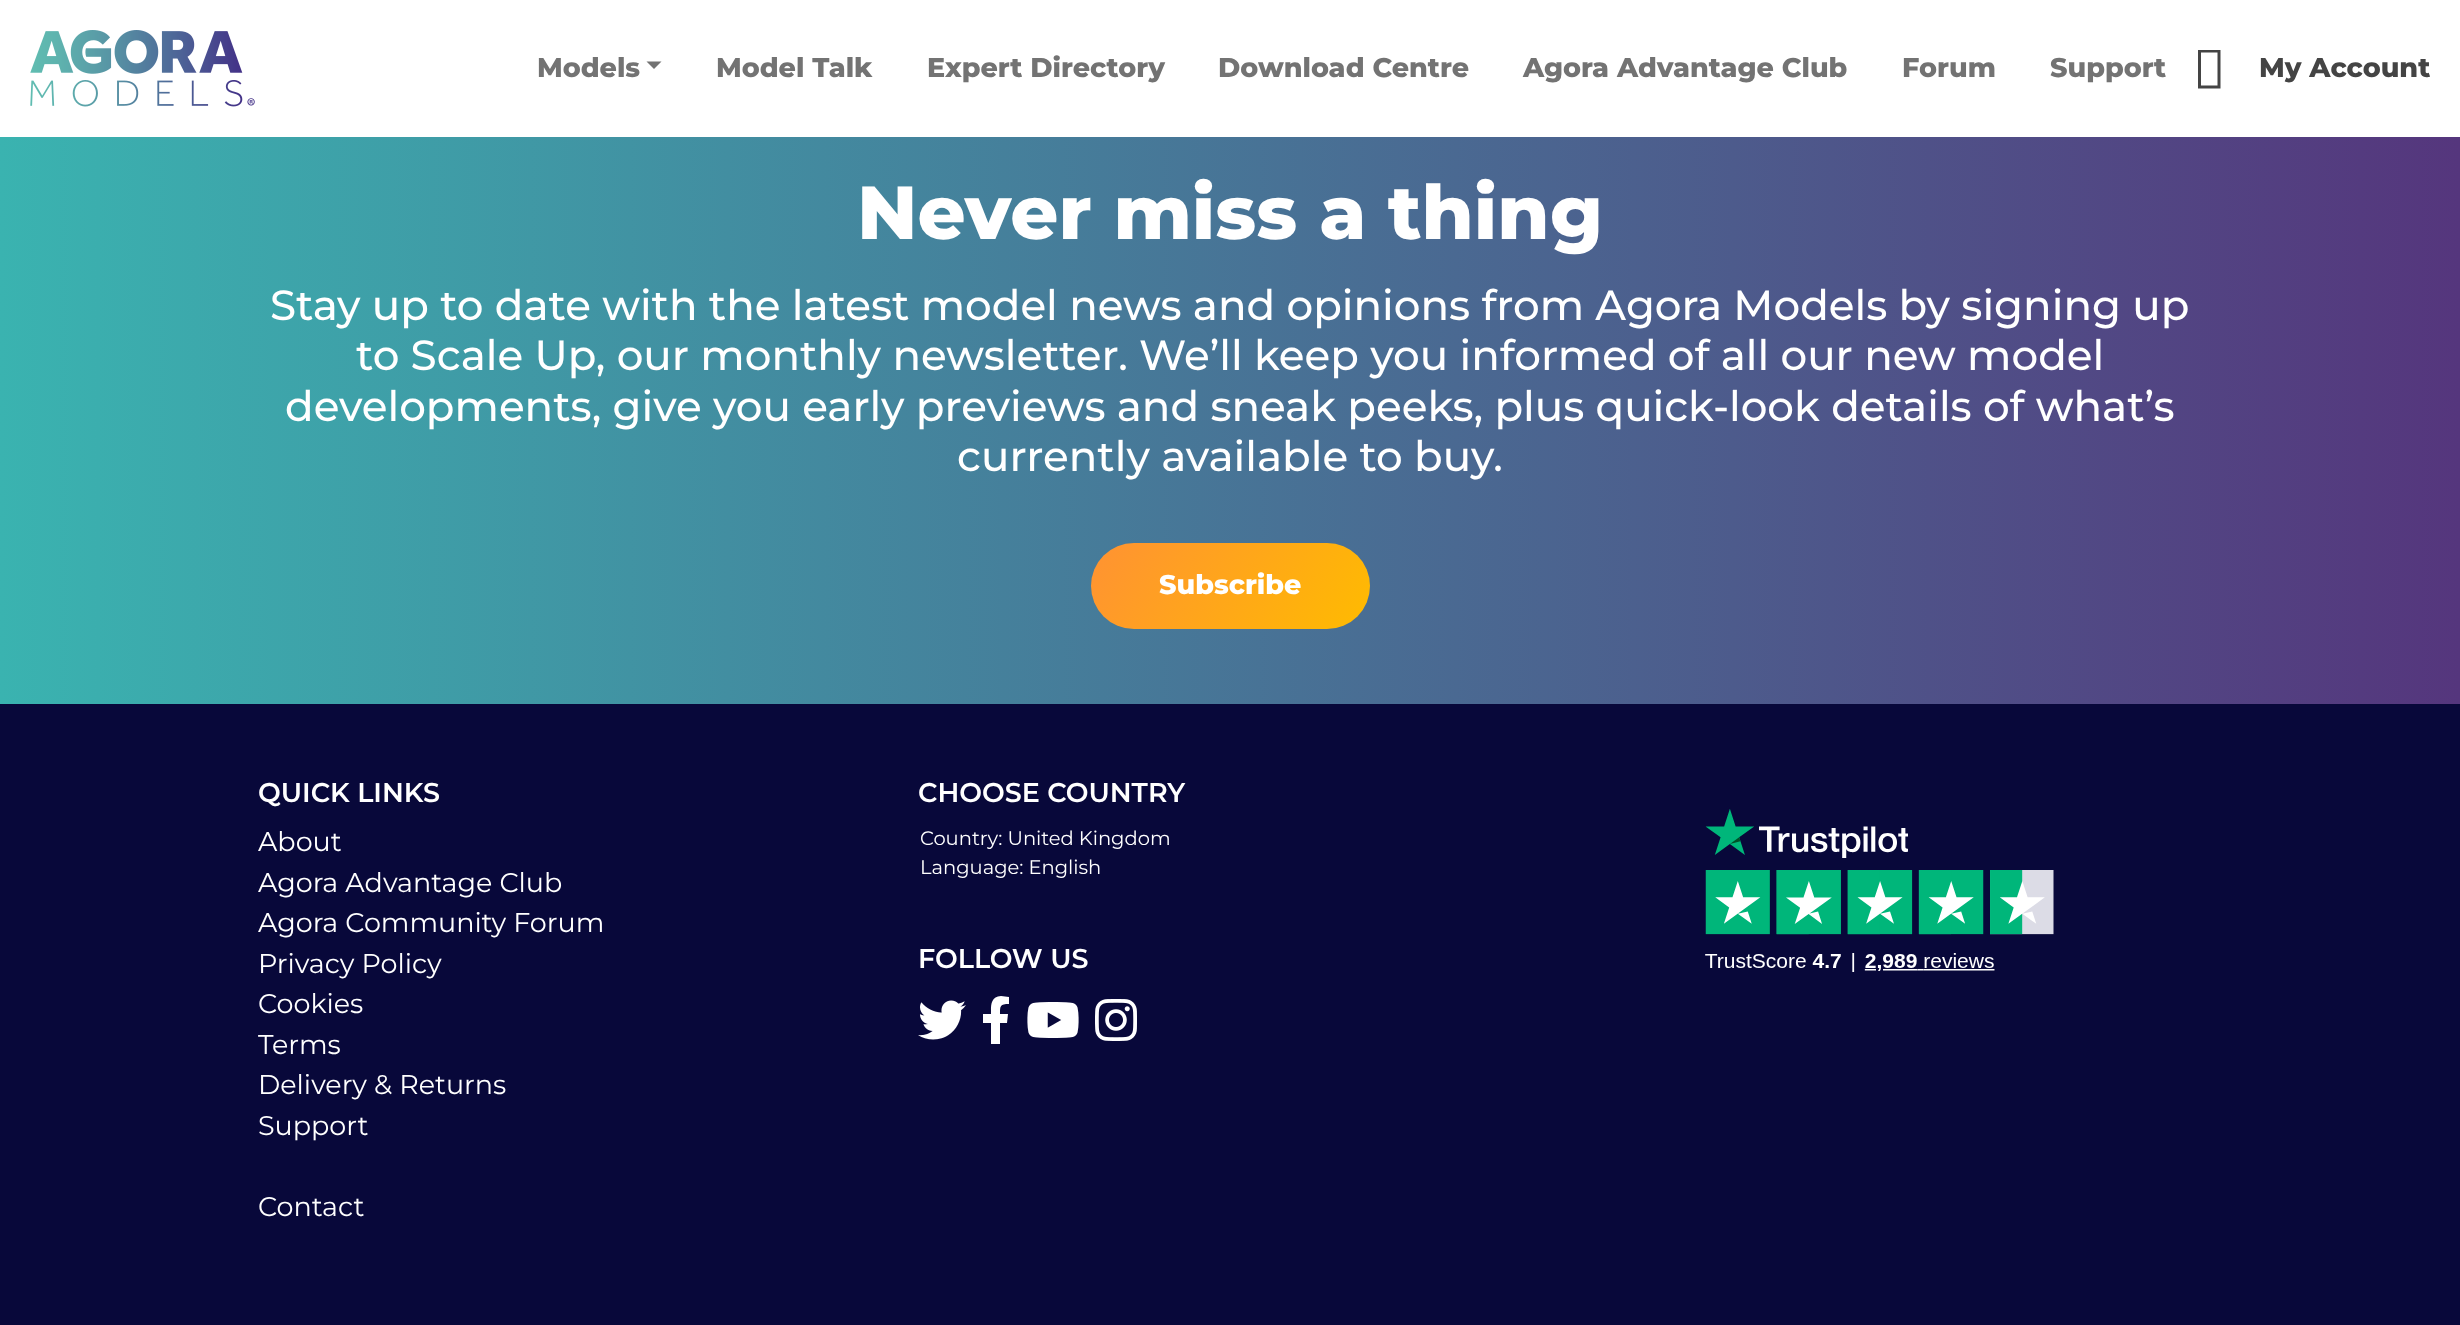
<svg xmlns="http://www.w3.org/2000/svg" width="2460" height="1325">
<style>
.a{font:800 27px Montserrat;fill:#737373}
.b{font:800 27px Montserrat;fill:#444}
.c{font:800 75px Montserrat;fill:#fff}
.d{font:500 42px Montserrat;fill:#fff}
.e{font:800 27px Montserrat;fill:#fff}
.f{font:600 27px Montserrat;fill:#fff}
.g{font:100 27px Montserrat;fill:#fff}
.h{font:100 19.5px Montserrat;fill:#fff}
</style>
<defs>
<linearGradient id="g1" gradientUnits="userSpaceOnUse" x1="0" y1="398" x2="2460" y2="398"><stop offset="0" stop-color="#3ab3b0"/><stop offset="1" stop-color="#55367d"/></linearGradient>
<linearGradient id="g2" gradientUnits="userSpaceOnUse" x1="1116" y1="506" x2="1344" y2="665"><stop offset="0" stop-color="#ff9233"/><stop offset="1" stop-color="#fb0"/></linearGradient>
</defs>
<rect width="100%" height="100%" fill="#fff"/>
<image href="1.png" x="30" y="30" width="225" height="77"/>
<path fill="#737373" d="M646.5 61.5h15l-7.5 7.5z"/>
<path fill="#444" d="M2198 88.5v-38.5h22.5v38.5zm3-3h16.5v-33h-16.5z"/>
<path fill="url(#g1)" d="M0 137h2460v567H0z"/>
<rect fill="url(#g2)" x="1091" y="543" width="279" height="86" rx="43"/>
<path fill="#08083a" d="M0 704h2460v621H0z"/>
<image href="2.png" x="918" y="1000" width="48" height="40"/>
<path fill="#fff" d="M1007 1023l1-9h-8c0-8 0-10 9-10v-7l-8-1c-11 1-10 10-10 18h-8v9h8v21h9v-21z"/>
<image href="3.png" x="1027" y="1002" width="52" height="36"/>
<image href="4.png" x="1095" y="999" width="42" height="42"/>
<image href="5.png" x="1705" y="809" width="349" height="163"/>
<text class="a" x="537" y="77">Models</text>
<text class="a" x="716" y="77">Model Talk</text>
<text class="a" x="927" y="77">Expert Directory</text>
<text class="a" x="1218" y="77">Download Centre</text>
<text class="a" x="1523" y="77">Agora Advantage Club</text>
<text class="a" x="1902" y="77">Forum</text>
<text class="a" x="2050" y="77">Support</text>
<text class="b" x="2259" y="77">My Account</text>
<text class="c" x="857" y="239">Never miss a thing</text>
<text class="d" x="270" y="320">Stay up to date with the latest model news and opinions from Agora Models by signing up</text>
<text class="d" x="356" y="370">to Scale Up, our monthly newsletter. We’ll keep you informed of all our new model</text>
<text class="d" x="285" y="421">developments, give you early previews and sneak peeks, plus quick-look details of what’s</text>
<text class="d" x="957" y="471">currently available to buy.</text>
<text class="e" x="1159" y="594">Subscribe</text>
<text class="f" x="258" y="802">QUICK LINKS</text>
<text class="g" x="258" y="851">About</text>
<text class="g" x="258" y="892">Agora Advantage Club</text>
<text class="g" x="258" y="932">Agora Community Forum</text>
<text class="g" x="258" y="973">Privacy Policy</text>
<text class="g" x="258" y="1013">Cookies</text>
<text class="g" x="258" y="1054">Terms</text>
<text class="g" x="258" y="1094">Delivery &amp; Returns</text>
<text class="g" x="258" y="1135">Support</text>
<text class="g" x="258" y="1216">Contact</text>
<text class="f" x="918" y="802">CHOOSE COUNTRY</text>
<text class="h" x="920" y="845">Country: United Kingdom</text>
<text class="h" x="920" y="874">Language: English</text>
<text class="f" x="918" y="968">FOLLOW US</text>
</svg>
